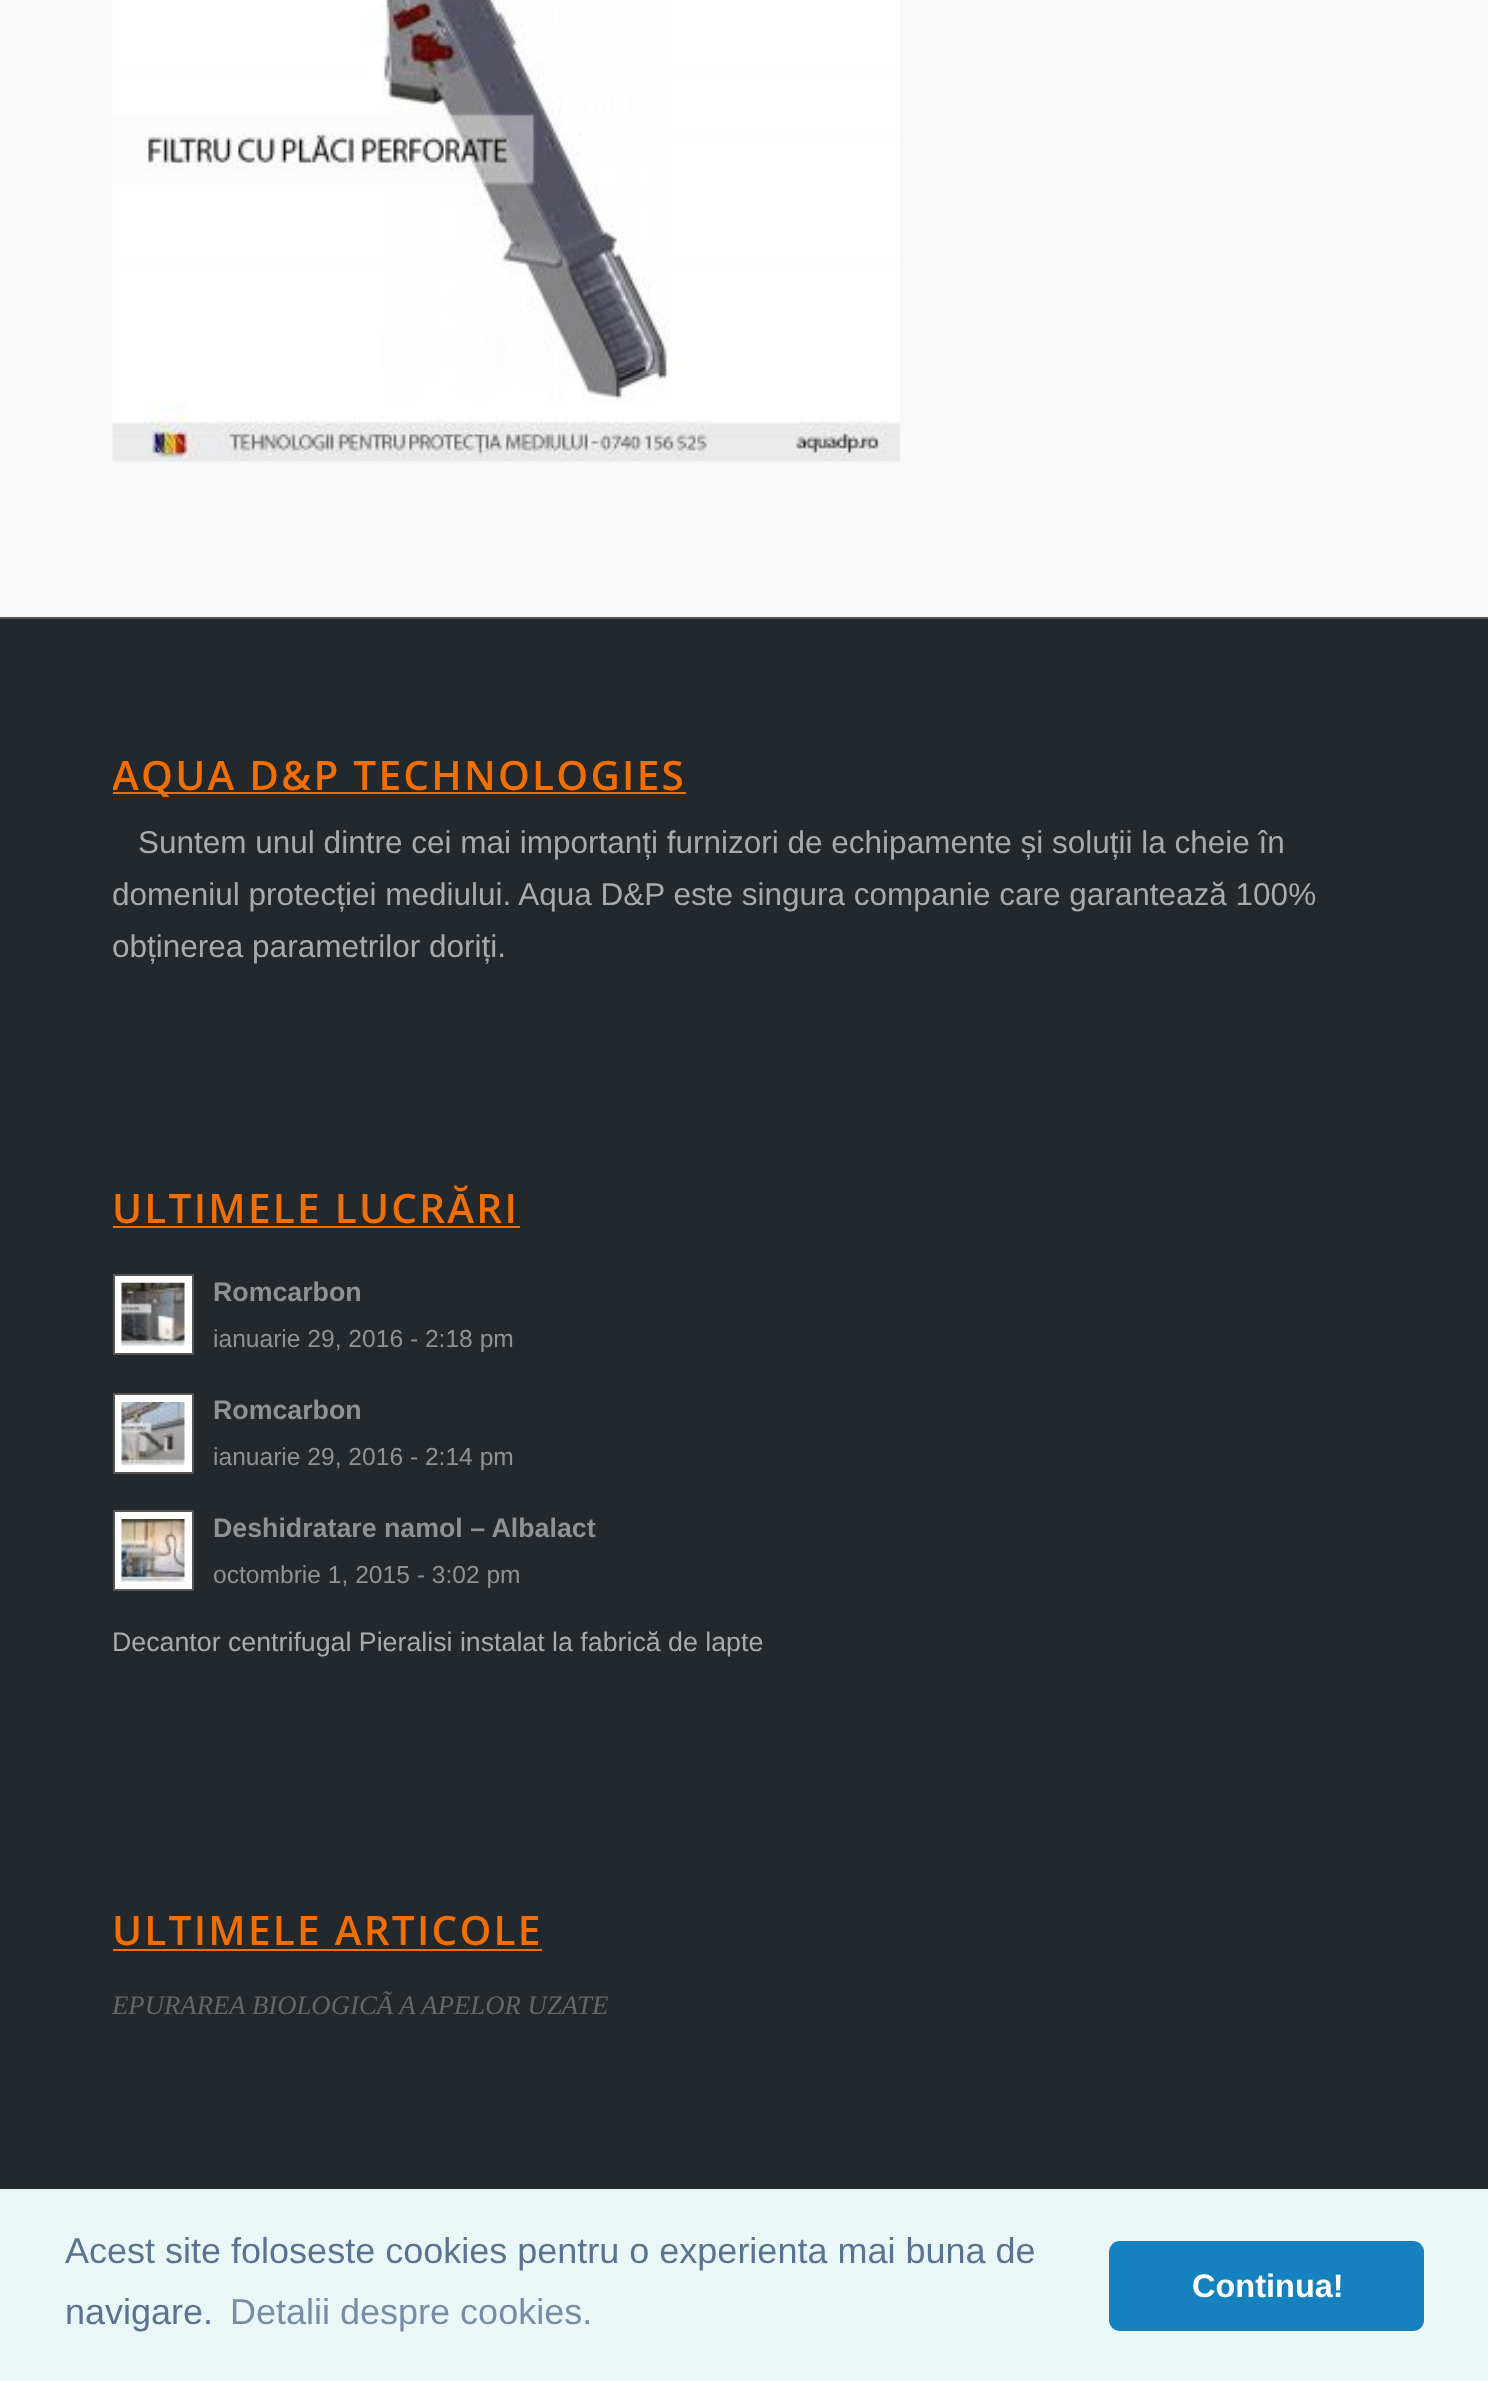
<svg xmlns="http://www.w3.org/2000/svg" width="1488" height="2381">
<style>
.a{font:600 40.5px Open Sans;letter-spacing:2.25px;fill:#f16e04}
.b{font:31.5px Liberation Sans;fill:#aaa}
.c{font:bold 26.75px Liberation Sans;fill:#919191}
.d{font:24.6px Liberation Sans;fill:#919191}
.e{font:26.75px Liberation Sans;fill:#aaa}
.f{font:italic 26.75px Liberation Serif;fill:#666}
.g{font:36px Liberation Sans;fill:#5c7291}
.h{font:36px Liberation Sans;fill:#788da5}
.i{font:bold 32.5px Liberation Sans;fill:#fff}
</style>
<defs>
<clipPath id="clip1"><path d="M113 720h1264v252H113z"/></clipPath>
</defs>
<rect width="100%" height="100%" fill="#f8f8f8"/>
<image href="1.png" x="112" y="0" width="788" height="462"/>
<path fill="#23282d" d="M0 619h1488v1570H0z"/>
<path fill="#555" d="M0 617h1488v2H0z"/>
<path fill="#f16e04" d="M113 792h573v2H113z"/>
<path fill="#f16e04" d="M113 1226h407v2H113z"/>
<path fill="#fff" stroke="#555" stroke-width="2" d="M114 1275h79v79H114z"/>
<image href="2.png" x="121" y="1282" width="64" height="64"/>
<path fill="#fff" stroke="#555" stroke-width="2" d="M114 1394h79v79H114z"/>
<image href="3.png" x="121" y="1402" width="64" height="63"/>
<path fill="#fff" stroke="#555" stroke-width="2" d="M114 1511h79v79H114z"/>
<image href="4.png" x="121" y="1519" width="64" height="63"/>
<path fill="#f16e04" d="M113 1949h429v2H113z"/>
<path fill="#eaf7f7" d="M0 2189h1488v192H0z"/>
<rect fill="#1581bf" x="1109" y="2241" width="315" height="90" rx="11"/>
<g clip-path="url(#clip1)">
<text class="a" x="112" y="790">AQUA D&amp;P TECHNOLOGIES</text>
</g>
<text class="b" x="138" y="853">Suntem unul dintre cei mai importanți furnizori de echipamente și soluții la cheie în</text>
<text class="b" x="112" y="905">domeniul protecției mediului. Aqua D&amp;P este singura companie care garantează 100%</text>
<text class="b" x="112" y="957">obținerea parametrilor doriți.</text>
<text class="a" x="112" y="1223">ULTIMELE LUCRĂRI</text>
<text class="c" x="213" y="1301">Romcarbon</text>
<text class="d" x="213" y="1347">ianuarie 29, 2016 - 2:18 pm</text>
<text class="c" x="213" y="1419">Romcarbon</text>
<text class="d" x="213" y="1465">ianuarie 29, 2016 - 2:14 pm</text>
<text class="c" x="213" y="1537">Deshidratare namol – Albalact</text>
<text class="d" x="213" y="1583">octombrie 1, 2015 - 3:02 pm</text>
<text class="e" x="112" y="1651">Decantor centrifugal Pieralisi instalat la fabrică de lapte</text>
<text class="a" x="112" y="1945">ULTIMELE ARTICOLE</text>
<text class="f" x="112" y="2014">EPURAREA BIOLOGICÃ A APELOR UZATE</text>
<text class="g" x="65" y="2263">Acest site foloseste cookies pentru o experienta mai buna de</text>
<text class="g" x="65" y="2324">navigare.</text>
<text class="h" x="230" y="2324">Detalii despre cookies.</text>
<text class="i" x="1192" y="2297">Continua!</text>
</svg>
